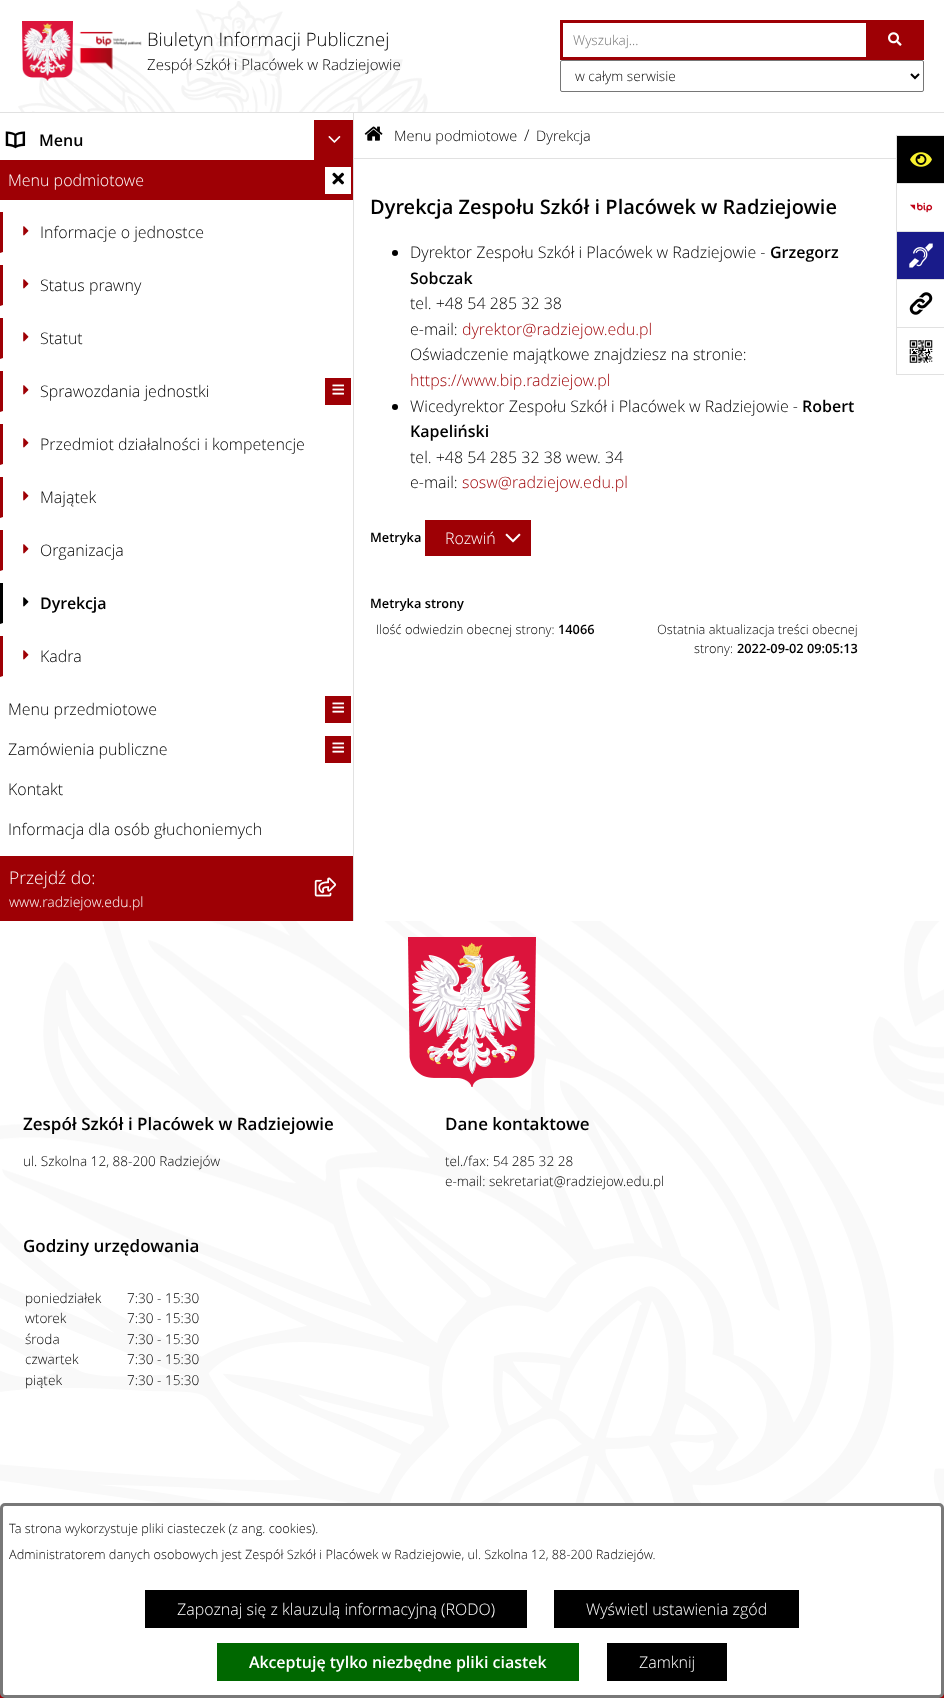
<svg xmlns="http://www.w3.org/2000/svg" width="944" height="1698">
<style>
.a{font:300 18.5px Open Sans;fill:#000}
.b{font:300 15px Open Sans;fill:#000}
.c{font:300 13.6px Open Sans;fill:#757575}
.d{font:300 13.6px Open Sans;fill:#000}
.e{font:600 16px Open Sans;fill:#000}
.f{font:300 16px Open Sans;fill:#fff}
.g{font:300 16px Open Sans;fill:#000}
.h{font:300 17.5px Open Sans;fill:#fff}
.i{font:300 14px Open Sans;fill:#fff}
.j{font:300 14.5px Open Sans;fill:#000}
.k{font:600 20px Open Sans;fill:#000}
.l{font:300 16px Open Sans;fill:#9e0005}
.m{font:600 12.8px Open Sans;fill:#000}
.n{font:300 12.8px Open Sans;fill:#000}
.o{font:600 17px Open Sans;fill:#000}
.p{font:600 16px Open Sans;fill:#fff}
</style>
<rect width="100%" height="100%" fill="#fff"/>
<path fill="#e1e1e1" d="M0 112h944v1H0z"/>
<image href="1.png" x="18" y="1" width="410" height="111"/>
<image href="2.png" x="22" y="21" width="51" height="60"/>
<image href="3.png" x="79" y="31" width="63" height="39"/>
<path fill="none" stroke="#9e0005" stroke-width="3" d="M561.5 21.5h306v37H561.5z"/>
<path fill="#9e0005" d="M869 20h55v40H869z"/>
<image href="4.png" x="888" y="32" width="14" height="14"/>
<rect fill="none" stroke="#767676" x="560.5" y="60.5" width="363" height="31" rx="1.5"/>
<path fill="none" stroke="#000" stroke-width="2" d="M911 74l4 4l4-4"/>
<image href="5.png" x="5" y="131" width="21" height="18"/>
<path fill="#9e0005" d="M314 120h39v40H314z"/>
<image href="6.png" x="328" y="136" width="13" height="7"/>
<path fill="#9e0005" d="M0 160h353v40H0z"/>
<path fill="#fff" d="M325 167h26v27H325z"/>
<image href="7.png" x="332" y="172" width="12" height="13"/>
<path fill="#9e0005" d="M0 253v-41h3v40z"/>
<image href="8.png" x="23" y="226" width="6" height="10"/>
<path fill="#9e0005" d="M0 306v-41h3v40z"/>
<image href="8.png" x="23" y="279" width="6" height="10"/>
<path fill="#9e0005" d="M0 359v-41h3v40z"/>
<image href="8.png" x="23" y="332" width="6" height="10"/>
<path fill="#9e0005" d="M0 412v-41h3v40z"/>
<image href="8.png" x="23" y="385" width="6" height="10"/>
<path fill="#9e0005" d="M325 378h26v27H325z"/>
<image href="9.png" x="332" y="384" width="12" height="11"/>
<path fill="#9e0005" d="M0 465v-41h3v40z"/>
<image href="8.png" x="23" y="438" width="6" height="10"/>
<path fill="#9e0005" d="M0 518v-41h3v40z"/>
<image href="8.png" x="23" y="491" width="6" height="10"/>
<path fill="#9e0005" d="M0 571v-41h3v40z"/>
<image href="8.png" x="23" y="544" width="6" height="10"/>
<path fill="#000" d="M0 624v-41h3v40z"/>
<image href="10.png" x="23" y="597" width="6" height="10"/>
<path fill="#9e0005" d="M0 677v-41h3v40z"/>
<image href="8.png" x="23" y="650" width="6" height="10"/>
<path fill="#9e0005" d="M325 696h26v27H325z"/>
<image href="9.png" x="332" y="702" width="12" height="11"/>
<path fill="#9e0005" d="M325 736h26v27H325z"/>
<image href="9.png" x="332" y="742" width="12" height="11"/>
<path fill="#e1e1e1" d="M353 113h1v808H353z"/>
<path fill="#000" d="M897 136h47v47H897z"/>
<path fill="#e1e1e1" d="M896 135h48v1H896z"/>
<path fill="#e1e1e1" d="M896 135h1v48H896z"/>
<image href="11.png" x="910" y="152" width="22" height="15"/>
<path fill="#e1e1e1" d="M896 183h48v1H896z"/>
<path fill="#e1e1e1" d="M896 183h1v48H896z"/>
<image href="12.png" x="910" y="202" width="23" height="11"/>
<path fill="#191b8a" d="M897 232h47v47H897z"/>
<path fill="#e1e1e1" d="M896 231h48v1H896z"/>
<path fill="#e1e1e1" d="M896 231h1v48H896z"/>
<image href="13.png" x="909" y="243" width="24" height="25"/>
<path fill="#e1e1e1" d="M896 279h48v1H896z"/>
<path fill="#e1e1e1" d="M896 279h1v48H896z"/>
<image href="14.png" x="909" y="292" width="24" height="23"/>
<path fill="#e1e1e1" d="M896 327h48v1H896z"/>
<path fill="#e1e1e1" d="M896 374h48v1H896z"/>
<path fill="#e1e1e1" d="M896 327h1v48H896z"/>
<image href="15.png" x="909" y="340" width="24" height="23"/>
<path fill="#9e0005" d="M0 856h353v65H0z"/>
<image href="16.png" x="314" y="877" width="23" height="20"/>
<path fill="#e1e1e1" d="M354 158h542v1H354z"/>
<image href="17.png" x="364" y="126" width="19" height="15"/>
<circle fill="#000" cx="395" cy="253" r="3"/>
<circle fill="#000" cx="395" cy="407" r="3"/>
<path fill="#9e0005" d="M425 520h106v36H425z"/>
<image href="18.png" x="505" y="533" width="16" height="10"/>
<image href="19.png" x="0" y="921" width="944" height="587"/>
<image href="20.png" x="408" y="937" width="128" height="150"/>
<path fill="#9e0005" d="M0 1693h944v5H0z"/>
<rect fill="#fff" stroke="#787878" stroke-width="3" x="1.5" y="1504.5" width="941" height="192" rx="3.5"/>
<path fill="#000" d="M145 1590h382v38H145z"/>
<path fill="#000" d="M554 1590h245v38H554z"/>
<path fill="#006800" d="M217 1643h362v38H217z"/>
<path fill="#000" d="M607 1643h120v38H607z"/>
<text class="a" x="147" y="46">Biuletyn Informacji Publicznej</text>
<text class="b" x="147" y="70">Zespół Szkół i Placówek w Radziejowie</text>
<text class="c" x="573" y="45">Wyszukaj...</text>
<text class="d" x="575" y="81">w całym serwisie</text>
<text class="e" x="39" y="146">Menu</text>
<text class="f" x="8" y="186">Menu podmiotowe</text>
<text class="g" x="40" y="238">Informacje o jednostce</text>
<text class="g" x="40" y="291">Status prawny</text>
<text class="g" x="40" y="344">Statut</text>
<text class="g" x="40" y="397">Sprawozdania jednostki</text>
<text class="g" x="40" y="450">Przedmiot działalności i kompetencje</text>
<text class="g" x="40" y="503">Majątek</text>
<text class="g" x="40" y="556">Organizacja</text>
<text class="e" x="40" y="609">Dyrekcja</text>
<text class="g" x="40" y="662">Kadra</text>
<text class="g" x="8" y="715">Menu przedmiotowe</text>
<text class="g" x="8" y="755">Zamówienia publiczne</text>
<text class="g" x="8" y="795">Kontakt</text>
<text class="g" x="8" y="835">Informacja dla osób głuchoniemych</text>
<text class="h" x="9" y="884">Przejdź do:</text>
<text class="i" x="9" y="907">www.radziejow.edu.pl</text>
<text class="j" x="394" y="141">Menu podmiotowe</text>
<text class="g" x="524" y="141">/</text>
<text class="j" x="536" y="141">Dyrekcja</text>
<text class="k" x="370" y="214">Dyrekcja Zespołu Szkół i Placówek w Radziejowie</text>
<text class="g" x="410" y="258">Dyrektor Zespołu Szkół i Placówek w Radziejowie -</text>
<text class="e" x="770" y="258">Grzegorz</text>
<text class="e" x="410" y="284">Sobczak</text>
<text class="g" x="410" y="309">tel. +48 54 285 32 38</text>
<text class="g" x="410" y="335">e-mail:</text>
<text class="l" x="462" y="335">dyrektor@radziejow.edu.pl</text>
<text class="g" x="410" y="360">Oświadczenie majątkowe znajdziesz na stronie:</text>
<text class="l" x="410" y="386">https://www.bip.radziejow.pl</text>
<text class="g" x="410" y="412">Wicedyrektor Zespołu Szkół i Placówek w Radziejowie -</text>
<text class="e" x="802" y="412">Robert</text>
<text class="e" x="410" y="437">Kapeliński</text>
<text class="g" x="410" y="463">tel. +48 54 285 32 38 wew. 34</text>
<text class="g" x="410" y="488">e-mail:</text>
<text class="l" x="462" y="488">sosw@radziejow.edu.pl</text>
<text class="m" x="370" y="542">Metryka</text>
<text class="f" x="445" y="544">Rozwiń</text>
<text class="m" x="370" y="608">Metryka strony</text>
<text class="n" x="376" y="634">Ilość odwiedzin obecnej strony:</text>
<text class="m" x="558" y="634">14066</text>
<text class="n" x="657" y="634">Ostatnia aktualizacja treści obecnej</text>
<text class="n" x="694" y="653">strony:</text>
<text class="m" x="737" y="653">2022-09-02 09:05:13</text>
<text class="o" x="23" y="1130">Zespół Szkół i Placówek w Radziejowie</text>
<text class="d" x="23" y="1166">ul. Szkolna 12, 88-200 Radziejów</text>
<text class="o" x="445" y="1130">Dane kontaktowe</text>
<text class="d" x="445" y="1166">tel./fax: 54 285 32 28</text>
<text class="d" x="445" y="1186">e-mail: sekretariat@radziejow.edu.pl</text>
<text class="o" x="23" y="1252">Godziny urzędowania</text>
<text class="d" x="25" y="1303">poniedziałek</text>
<text class="d" x="25" y="1323">wtorek</text>
<text class="d" x="25" y="1344">środa</text>
<text class="d" x="25" y="1364">czwartek</text>
<text class="d" x="25" y="1385">piątek</text>
<text class="d" x="127" y="1303">7:30 - 15:30</text>
<text class="d" x="127" y="1323">7:30 - 15:30</text>
<text class="d" x="127" y="1344">7:30 - 15:30</text>
<text class="d" x="127" y="1364">7:30 - 15:30</text>
<text class="d" x="127" y="1385">7:30 - 15:30</text>
<text class="n" x="9" y="1533">Ta strona wykorzystuje pliki ciasteczek (z ang. cookies).</text>
<text class="n" x="9" y="1559">Administratorem danych osobowych jest Zespół Szkół i Placówek w Radziejowie, ul. Szkolna 12, 88-200 Radziejów.</text>
<text class="f" x="177" y="1615">Zapoznaj się z klauzulą informacyjną (RODO)</text>
<text class="f" x="586" y="1615">Wyświetl ustawienia zgód</text>
<text class="p" x="249" y="1668">Akceptuję tylko niezbędne pliki ciastek</text>
<text class="f" x="639" y="1668">Zamknij</text>
</svg>
